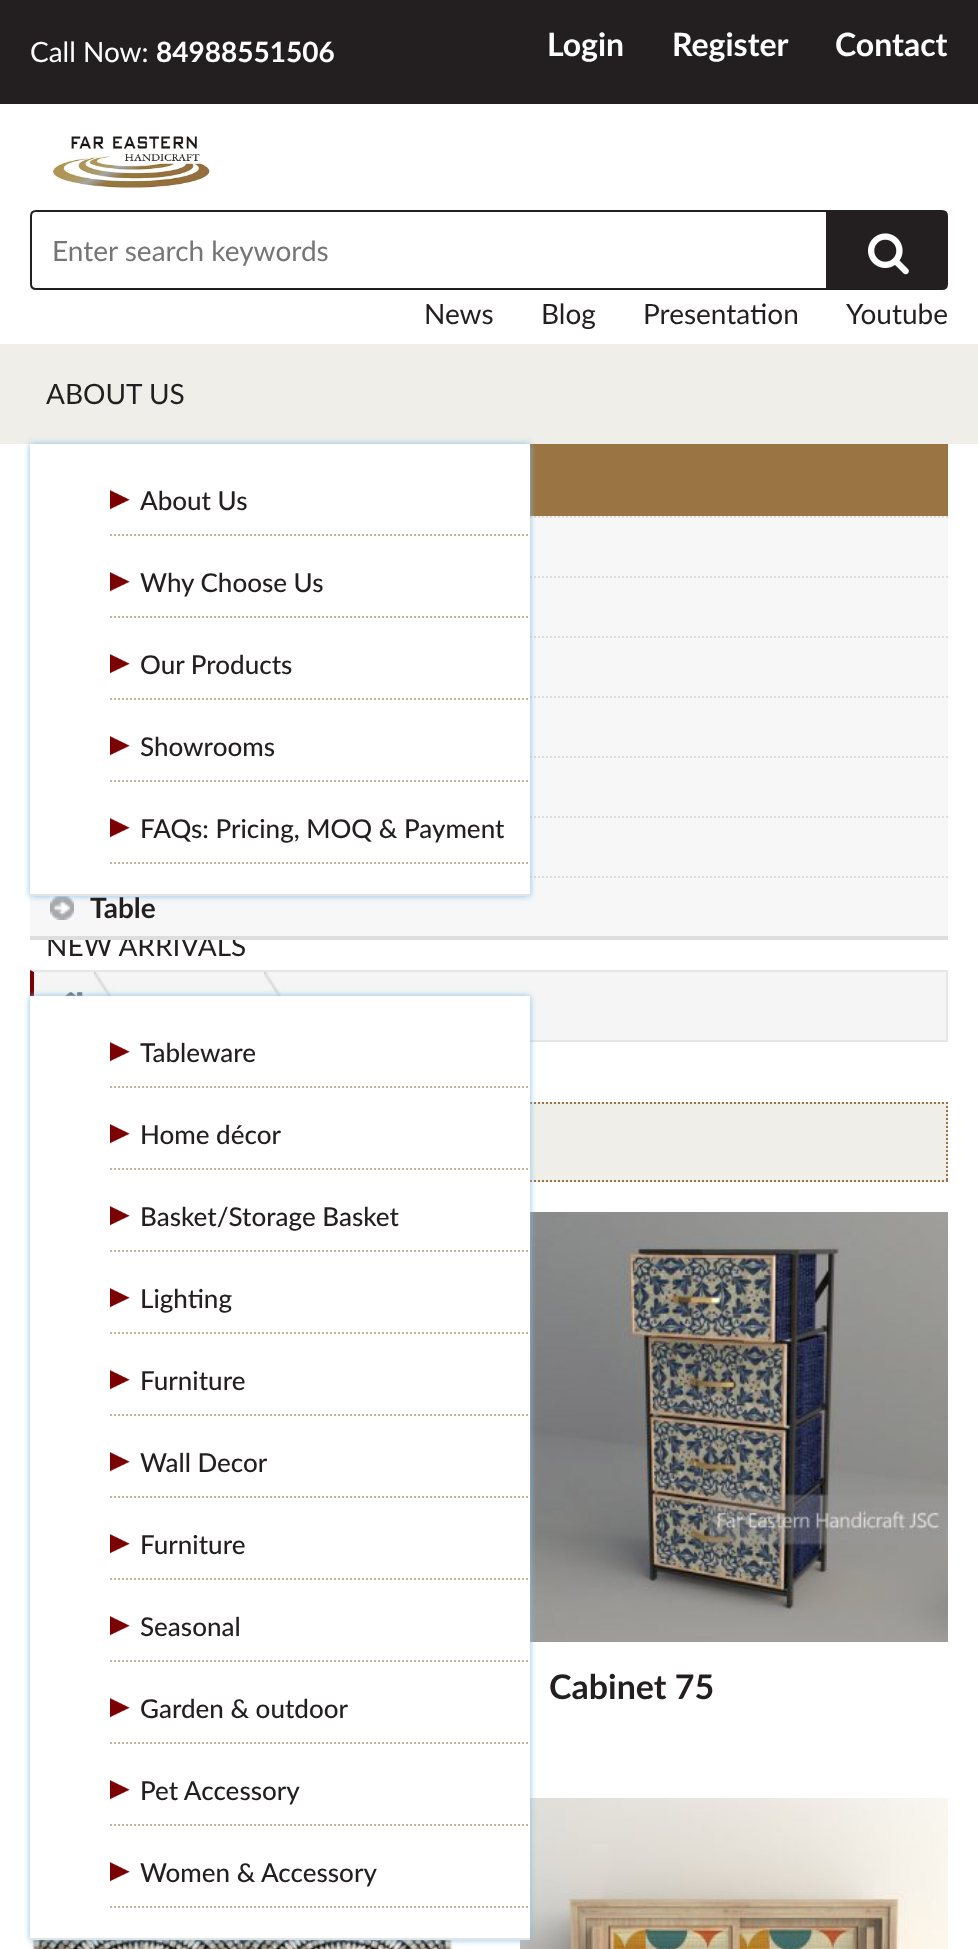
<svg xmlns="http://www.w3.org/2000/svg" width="978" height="1949">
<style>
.a{font:28px Lato;fill:#fff}
.b{font:bold 28px Lato;fill:#fff}
.c{font:bold 32px Lato;fill:#fff}
.d{font:28px Lato;fill:#757575}
.e{font:28px Lato;fill:#231f20}
.f{font:500 26px Lato;fill:#231f20}
.g{font:bold 28px Lato;fill:#231f20}
.h{font:bold 34px Lato;fill:#231f20}
</style>
<rect width="100%" height="100%" fill="#fff"/>
<path fill="#231f20" d="M0 0h978v104H0z"/>
<image href="1.png" x="51" y="136" width="159" height="53"/>
<path fill="none" stroke="#231f20" stroke-width="2" d="M36 211h791v78h-791c-3 0-5-2-5-5v-68c0-3 2-5 5-5z"/>
<path fill="#231f20" stroke="#231f20" stroke-width="2" d="M829 211h113c3 0 5 2 5 5v68c0 3-2 5-5 5h-113z"/>
<image href="2.png" x="868" y="233" width="41" height="42"/>
<path fill="#efeee9" d="M0 344h978v100H0z"/>
<path fill="#f5f5f5" d="M34 972h912v68H34z"/>
<path fill="#e6e6e6" d="M30 970h918l-2 2h-912z"/>
<path fill="#e6e6e6" d="M946 970h2v72H946z"/>
<path fill="#e6e6e6" d="M948 1042h-918l4-2h912z"/>
<path fill="#7b0002" d="M30 1042v-72l4 2v68z"/>
<image href="5.png" x="65" y="992" width="18" height="4"/>
<image href="6.png" x="94" y="972" width="23" height="24"/>
<image href="6.png" x="264" y="972" width="23" height="24"/>
<path fill="#efeee9" d="M530 1102h418v80H530z"/>
<path fill="none" stroke="#9a7443" stroke-width="2" stroke-dasharray="2 2" d="M30 1103h918"/>
<path fill="none" stroke="#9a7443" stroke-width="2" stroke-dasharray="2 2" d="M30 1181h918"/>
<image href="7.png" x="530" y="1212" width="418" height="430"/>
<image href="8.png" x="30" y="1940" width="424" height="9"/>
<image href="9.png" x="520" y="1798" width="428" height="151"/>
<path fill="#88bfe5" filter="blur(3px)" d="M30 996h500v944H30z"/>
<path fill="#fff" d="M30 996h500v942H30z"/>
<path fill="#e3e3e3" d="M30 1938h500v2H30z"/>
<image href="3.png" x="110" y="1042" width="20" height="20"/>
<path fill="none" stroke="#c1b69b" stroke-width="2" stroke-dasharray="2 2" d="M110 1087h420"/>
<image href="3.png" x="110" y="1124" width="20" height="20"/>
<path fill="none" stroke="#c1b69b" stroke-width="2" stroke-dasharray="2 2" d="M110 1169h420"/>
<image href="3.png" x="110" y="1206" width="20" height="20"/>
<path fill="none" stroke="#c1b69b" stroke-width="2" stroke-dasharray="2 2" d="M110 1251h420"/>
<image href="3.png" x="110" y="1288" width="20" height="20"/>
<path fill="none" stroke="#c1b69b" stroke-width="2" stroke-dasharray="2 2" d="M110 1333h420"/>
<image href="3.png" x="110" y="1370" width="20" height="20"/>
<path fill="none" stroke="#c1b69b" stroke-width="2" stroke-dasharray="2 2" d="M110 1415h420"/>
<image href="3.png" x="110" y="1452" width="20" height="20"/>
<path fill="none" stroke="#c1b69b" stroke-width="2" stroke-dasharray="2 2" d="M110 1497h420"/>
<image href="3.png" x="110" y="1534" width="20" height="20"/>
<path fill="none" stroke="#c1b69b" stroke-width="2" stroke-dasharray="2 2" d="M110 1579h420"/>
<image href="3.png" x="110" y="1616" width="20" height="20"/>
<path fill="none" stroke="#c1b69b" stroke-width="2" stroke-dasharray="2 2" d="M110 1661h420"/>
<image href="3.png" x="110" y="1698" width="20" height="20"/>
<path fill="none" stroke="#c1b69b" stroke-width="2" stroke-dasharray="2 2" d="M110 1743h420"/>
<image href="3.png" x="110" y="1780" width="20" height="20"/>
<path fill="none" stroke="#c1b69b" stroke-width="2" stroke-dasharray="2 2" d="M110 1825h420"/>
<image href="3.png" x="110" y="1862" width="20" height="20"/>
<path fill="none" stroke="#c1b69b" stroke-width="2" stroke-dasharray="2 2" d="M110 1907h420"/>
<path fill="#9a7443" d="M530 444h418v72H530z"/>
<path fill="none" stroke="#9a7443" stroke-width="2" stroke-dasharray="2 2" d="M947 1102v80"/>
<text class="a" x="30" y="62">Call Now:</text>
<text class="b" x="156" y="62">84988551506</text>
<text class="c" x="547" y="56">Login</text>
<text class="c" x="672" y="56">Register</text>
<text class="c" x="835" y="56">Contact</text>
<text class="d" x="52" y="261">Enter search keywords</text>
<text class="e" x="424" y="324">News</text>
<text class="e" x="541" y="324">Blog</text>
<text class="e" x="643" y="324">Presentation</text>
<text class="e" x="846" y="324">Youtube</text>
<text class="e" x="46" y="404">ABOUT US</text>
<text class="e" x="46" y="956">NEW ARRIVALS</text>
<text class="f" x="140" y="1062">Tableware</text>
<text class="f" x="140" y="1144">Home décor</text>
<text class="f" x="140" y="1226">Basket/Storage Basket</text>
<text class="f" x="140" y="1308">Lighting</text>
<text class="f" x="140" y="1390">Furniture</text>
<text class="f" x="140" y="1472">Wall Decor</text>
<text class="f" x="140" y="1554">Furniture</text>
<text class="f" x="140" y="1636">Seasonal</text>
<text class="f" x="140" y="1718">Garden &amp; outdoor</text>
<text class="f" x="140" y="1800">Pet Accessory</text>
<text class="f" x="140" y="1882">Women &amp; Accessory</text>
<path fill="#f7f7f7" d="M30 516h918v420H30z"/>
<path fill="#ddd" d="M30 936h918v4H30z"/>
<path fill="none" stroke="#ddd" stroke-width="2" stroke-dasharray="2 2" d="M30 517h918"/>
<path fill="none" stroke="#ddd" stroke-width="2" stroke-dasharray="2 2" d="M30 577h918"/>
<path fill="none" stroke="#ddd" stroke-width="2" stroke-dasharray="2 2" d="M30 637h918"/>
<path fill="none" stroke="#ddd" stroke-width="2" stroke-dasharray="2 2" d="M30 697h918"/>
<path fill="none" stroke="#ddd" stroke-width="2" stroke-dasharray="2 2" d="M30 757h918"/>
<path fill="none" stroke="#ddd" stroke-width="2" stroke-dasharray="2 2" d="M30 817h918"/>
<path fill="none" stroke="#ddd" stroke-width="2" stroke-dasharray="2 2" d="M30 877h918"/>
<image href="4.png" x="50" y="896" width="24" height="24"/>
<path fill="#88bfe5" filter="blur(3px)" d="M30 444h500v452H30z"/>
<path fill="#fff" d="M30 444h500v450H30z"/>
<text class="f" x="140" y="838">FAQs: Pricing, MOQ &amp; Payment</text>
<path fill="none" stroke="#c1b69b" stroke-width="2" stroke-dasharray="2 2" d="M110 863h420"/>
<image href="3.png" x="110" y="818" width="20" height="20"/>
<text class="f" x="140" y="756">Showrooms</text>
<path fill="none" stroke="#c1b69b" stroke-width="2" stroke-dasharray="2 2" d="M110 781h420"/>
<image href="3.png" x="110" y="736" width="20" height="20"/>
<text class="f" x="140" y="674">Our Products</text>
<path fill="none" stroke="#c1b69b" stroke-width="2" stroke-dasharray="2 2" d="M110 699h420"/>
<image href="3.png" x="110" y="654" width="20" height="20"/>
<text class="f" x="140" y="592">Why Choose Us</text>
<path fill="none" stroke="#c1b69b" stroke-width="2" stroke-dasharray="2 2" d="M110 617h420"/>
<image href="3.png" x="110" y="572" width="20" height="20"/>
<text class="f" x="140" y="510">About Us</text>
<path fill="none" stroke="#c1b69b" stroke-width="2" stroke-dasharray="2 2" d="M110 535h420"/>
<image href="3.png" x="110" y="490" width="20" height="20"/>
<path fill="#e3e3e3" d="M30 894h500v2H30z"/>
<text class="g" x="90" y="918">Table</text>
<text class="h" x="549" y="1699">Cabinet 75</text>
</svg>
